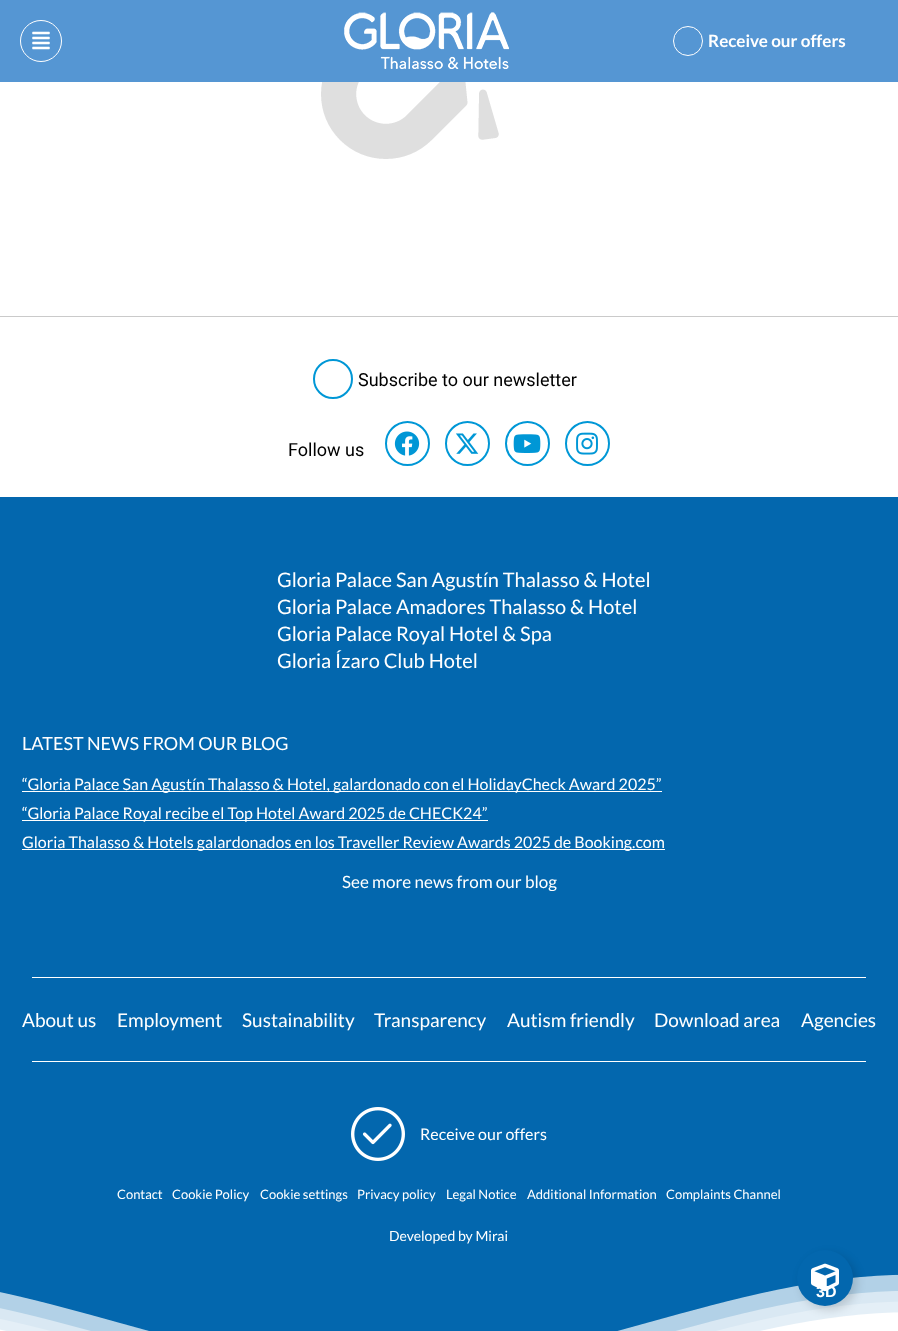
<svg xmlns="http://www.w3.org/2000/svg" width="898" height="1331">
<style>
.a{font:bold 17px Lato;fill:#fff}
.b{font:18px Roboto;fill:#000}
.c{font:20px Lato;fill:#fff}
.d{font:18px Lato;fill:#fff}
.e{font:16px Lato;fill:#fff}
.f{font:17px Lato;fill:#fff}
.g{font:19px Lato;fill:#fff}
.h{font:13px Lato;fill:#fff}
.i{font:14px Lato;fill:#fff}
.j{font:bold 16px Liberation Sans;fill:#fff}
</style>
<rect width="100%" height="100%" fill="#fff"/>
<path fill="#5596d3" d="M0 0h898v82H0z"/>
<circle fill="none" stroke="#fff" cx="41" cy="41" r="20.5"/>
<image href="1.png" x="32" y="31" width="18" height="19"/>
<image href="2.png" x="344" y="12" width="165" height="57"/>
<circle fill="none" stroke="#fff" cx="688" cy="41" r="14.5"/>
<image href="3.png" x="321" y="82" width="178" height="77"/>
<path fill="#cacaca" d="M0 316h898v1H0z"/>
<circle fill="none" stroke="#0097d6" stroke-width="2" cx="333" cy="379" r="19"/>
<circle fill="none" stroke="#0097d6" stroke-width="2" cx="407.5" cy="443.5" r="21.5"/>
<image href="4.png" x="394" y="431" width="26" height="25"/>
<circle fill="none" stroke="#0097d6" stroke-width="2" cx="467.5" cy="443.5" r="21.5"/>
<image href="5.png" x="456" y="433" width="23" height="21"/>
<circle fill="none" stroke="#0097d6" stroke-width="2" cx="527.5" cy="443.5" r="21.5"/>
<image href="6.png" x="513" y="434" width="28" height="19"/>
<circle fill="none" stroke="#0097d6" stroke-width="2" cx="587.5" cy="443.5" r="21.5"/>
<image href="7.png" x="576" y="432" width="22" height="23"/>
<path fill="#0367ae" d="M0 497h898v834H0z"/>
<path fill="#fff" d="M22 791h640v1H22z"/>
<path fill="#fff" d="M22 820h466v1H22z"/>
<path fill="#fff" d="M22 849h643v1H22z"/>
<path fill="#fff" d="M32 977h834v1H32z"/>
<path fill="#fff" d="M32 1061h834v1H32z"/>
<image href="8.png" x="351" y="1107" width="54" height="54"/>
<image href="9.png" x="0" y="1274" width="898" height="57"/>
<rect fill="#00000026" filter="blur(5px)" x="801" y="1254" width="56" height="56" rx="28"/>
<circle fill="#0367ae" cx="825" cy="1278" r="28"/>
<image href="10.png" x="811" y="1263" width="28" height="29"/>
<text class="a" x="708" y="47">Receive our offers</text>
<text class="b" x="358" y="386">Subscribe to our newsletter</text>
<text class="b" x="288" y="456">Follow us</text>
<text class="c" x="277" y="587">Gloria Palace San Agustín Thalasso &amp; Hotel</text>
<text class="c" x="277" y="614">Gloria Palace Amadores Thalasso &amp; Hotel</text>
<text class="c" x="277" y="641">Gloria Palace Royal Hotel &amp; Spa</text>
<text class="c" x="277" y="668">Gloria Ízaro Club Hotel</text>
<text class="d" x="22" y="750">LATEST NEWS FROM OUR BLOG</text>
<text class="e" x="22" y="790">“Gloria Palace San Agustín Thalasso &amp; Hotel, galardonado con el HolidayCheck Award 2025”</text>
<text class="e" x="22" y="819">“Gloria Palace Royal recibe el Top Hotel Award 2025 de CHECK24”</text>
<text class="e" x="22" y="848">Gloria Thalasso &amp; Hotels galardonados en los Traveller Review Awards 2025 de Booking.com</text>
<text class="f" x="342" y="888">See more news from our blog</text>
<text class="g" x="22" y="1027">About us</text>
<text class="g" x="117" y="1027">Employment</text>
<text class="g" x="242" y="1027">Sustainability</text>
<text class="g" x="374" y="1027">Transparency</text>
<text class="g" x="507" y="1027">Autism friendly</text>
<text class="g" x="654" y="1027">Download area</text>
<text class="g" x="801" y="1027">Agencies</text>
<text class="e" x="420" y="1140">Receive our offers</text>
<text class="h" x="117" y="1199">Contact</text>
<text class="h" x="172" y="1199">Cookie Policy</text>
<text class="h" x="260" y="1199">Cookie settings</text>
<text class="h" x="357" y="1199">Privacy policy</text>
<text class="h" x="446" y="1199">Legal Notice</text>
<text class="h" x="527" y="1199">Additional Information</text>
<text class="h" x="666" y="1199">Complaints Channel</text>
<text class="i" x="389" y="1241">Developed by Mirai</text>
<text class="j" x="816" y="1297">3D</text>
</svg>
